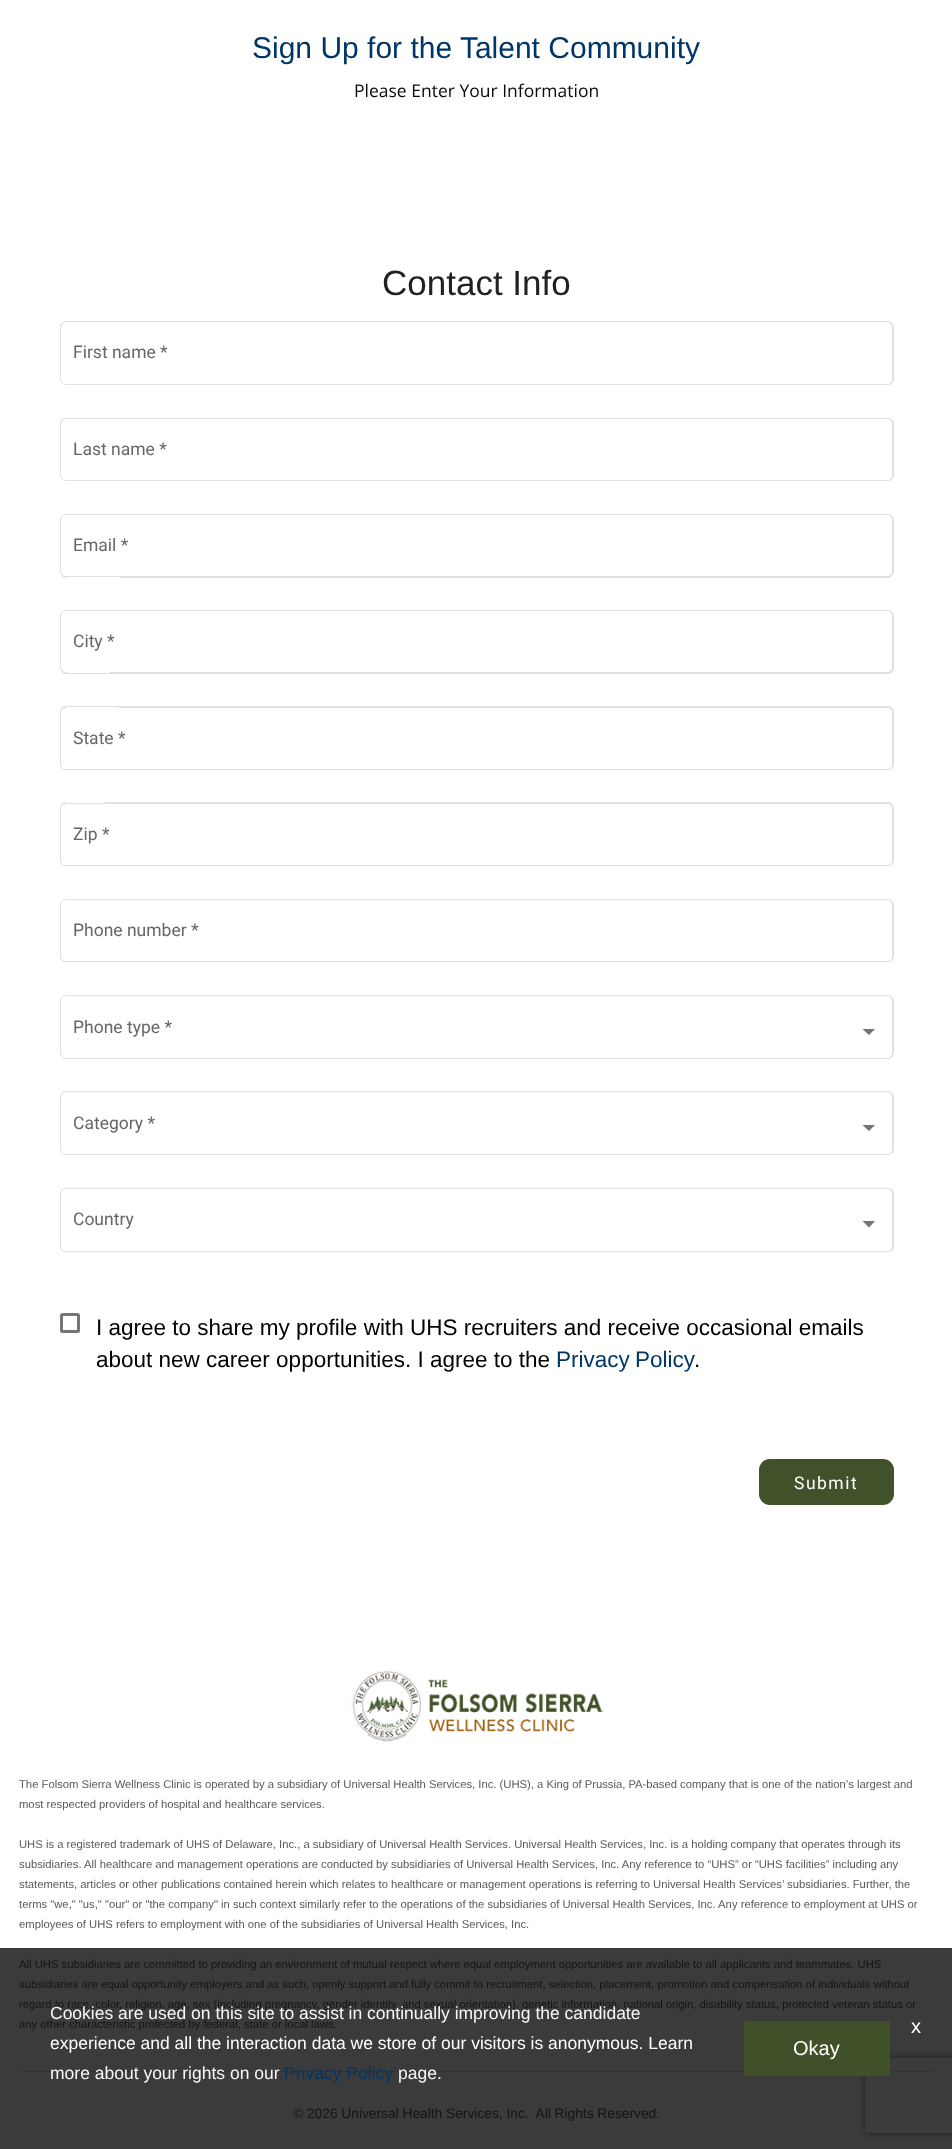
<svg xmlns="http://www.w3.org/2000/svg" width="952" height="2149">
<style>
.a{font:30px Liberation Sans;fill:#003667}
.b{font:17.5px Open Sans;fill:#0a0a0a}
.c{font:35px Liberation Sans;fill:#212121}
.d{font:17.5px Roboto;fill:#666}
.e{font:22.5px Liberation Sans;fill:#000}
.f{font:22.5px Liberation Sans;fill:#003667}
.g{font:17.5px Roboto;letter-spacing:1.5px;fill:#fff}
.h{font:11.25px Liberation Sans;fill:#58595b}
.i{font:11.25px Liberation Sans;fill:#141415}
.j{font:13.75px Liberation Sans;fill:#141415}
.k{font:17.5px Liberation Sans;fill:#f8f8f8}
.l{font:17.5px Liberation Sans;fill:#fff}
.m{font:17.5px Liberation Sans;fill:#003667}
.n{font:20px Liberation Sans;fill:#fff}
</style>
<defs>
<clipPath id="clip1"><path d="M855 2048h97v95h-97zm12.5 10h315c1.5 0 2.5 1 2.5 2.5v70c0 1.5-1 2.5-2.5 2.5h-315c-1.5 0-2.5-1-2.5-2.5v-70c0-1.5 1-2.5 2.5-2.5z" clip-rule="evenodd"/></clipPath>
</defs>
<rect width="100%" height="100%" fill="#fff"/>
<path fill="#3b3b3b" d="M0 1948h952v201H0z"/>
<path fill="#e0e0e0" fill-rule="evenodd" d="M66 321v64c-3 0-6-3-6-6v-51c0-4 3-7 6-7zm0 1v62c-3 0-5-2-5-5v-51c0-3 2-6 5-6z"/>
<path fill="#e0e0e0" d="M66 321h83v1H66z"/>
<path fill="#e0e0e0" d="M66 384h83v1H66z"/>
<path fill="#e0e0e0" fill-rule="evenodd" d="M149 321h739c3 0 6 3 6 7v51c0 3-3 6-6 6h-739zm0 1h739c2 0 4 3 4 6v51c0 3-2 5-4 5h-739z"/>
<path fill="#e0e0e0" fill-rule="evenodd" d="M66 418v63c-3 0-6-3-6-6v-51c0-4 3-6 6-6zm0 1v61c-3 0-5-2-5-5v-51c0-3 2-5 5-5z"/>
<path fill="#e0e0e0" d="M66 418h83v1H66z"/>
<path fill="#e0e0e0" d="M66 480h83v1H66z"/>
<path fill="#e0e0e0" fill-rule="evenodd" d="M149 418h739c3 0 6 2 6 6v51c0 3-3 6-6 6h-739zm0 1h739c2 0 4 2 4 5v51c0 3-2 5-4 5h-739z"/>
<path fill="#e0e0e0" fill-rule="evenodd" d="M66 514v64c-3 0-6-3-6-7v-51c0-3 3-6 6-6zm0 1v61c-3 0-5-2-5-5v-51c0-3 2-5 5-5z"/>
<path fill="#e0e0e0" d="M66 514h54v1H66z"/>
<path fill="#e0e0e0" d="M66 576h54v1H66z"/>
<path fill="#e0e0e0" fill-rule="evenodd" d="M120 514h768c3 0 6 3 6 6v51c0 4-3 7-6 7h-768zm0 1h768c2 0 4 2 4 5v51c0 3-2 5-4 5h-768z"/>
<path fill="#e0e0e0" fill-rule="evenodd" d="M66 610v64c-3 0-6-3-6-6v-52c0-3 3-6 6-6zm0 1v61c-3 0-5-2-5-4v-52c0-3 2-5 5-5z"/>
<path fill="#e0e0e0" d="M66 610h44v1H66z"/>
<path fill="#e0e0e0" d="M66 673h44v1H66z"/>
<path fill="#e0e0e0" fill-rule="evenodd" d="M110 610h778c3 0 6 3 6 6v52c0 3-3 6-6 6h-778zm0 1h778c2 0 4 2 4 5v52c0 2-2 4-4 4h-778z"/>
<path fill="#e0e0e0" fill-rule="evenodd" d="M66 706v64c-3 0-6-3-6-6v-52c0-3 3-6 6-6zm0 2v61c-3 0-5-2-5-5v-52c0-2 2-4 5-4z"/>
<path fill="#e0e0e0" d="M66 706h53v1H66z"/>
<path fill="#e0e0e0" d="M66 769h53v1H66z"/>
<path fill="#e0e0e0" fill-rule="evenodd" d="M119 706h769c3 0 6 3 6 6v52c0 3-3 6-6 6h-769zm0 2h769c2 0 4 2 4 4v52c0 3-2 5-4 5h-769z"/>
<path fill="#e0e0e0" fill-rule="evenodd" d="M66 802v64c-3 0-6-3-6-6v-51c0-4 3-7 6-7zm0 2v61c-3 0-5-2-5-5v-51c0-3 2-5 5-5z"/>
<path fill="#e0e0e0" d="M66 803h39v1H66z"/>
<path fill="#e0e0e0" d="M66 865h39v1H66z"/>
<path fill="#e0e0e0" fill-rule="evenodd" d="M105 802h783c3 0 6 3 6 7v51c0 3-3 6-6 6h-783zm0 2h783c2 0 4 2 4 5v51c0 3-2 5-4 5h-783z"/>
<path fill="#e0e0e0" fill-rule="evenodd" d="M66 899v63c-3 0-6-2-6-6v-51c0-3 3-6 6-6zm0 1v61c-3 0-5-2-5-5v-51c0-3 2-5 5-5z"/>
<path fill="#e0e0e0" d="M66 899h108v1H66z"/>
<path fill="#e0e0e0" d="M66 961h108v1H66z"/>
<path fill="#e0e0e0" fill-rule="evenodd" d="M174 899h714c3 0 6 3 6 6v51c0 4-3 6-6 6h-714zm0 1h714c2 0 4 2 4 5v51c0 3-2 5-4 5h-714z"/>
<path fill="#e0e0e0" fill-rule="evenodd" d="M66 995v64c-3 0-6-3-6-7v-51c0-3 3-6 6-6zm0 1v62c-3 0-5-3-5-6v-51c0-3 2-5 5-5z"/>
<path fill="#e0e0e0" d="M66 995h88v1H66z"/>
<path fill="#e0e0e0" d="M66 1058h88v1H66z"/>
<path fill="#e0e0e0" fill-rule="evenodd" d="M154 995h734c3 0 6 3 6 6v51c0 4-3 7-6 7h-734zm0 1h734c2 0 4 2 4 5v51c0 3-2 6-4 6h-734z"/>
<path fill="#757575" d="M862.5 1029h12.5l-6 6z"/>
<path fill="#e0e0e0" fill-rule="evenodd" d="M66 1091v64c-3 0-6-3-6-6v-51c0-4 3-7 6-7zm0 1v62c-3 0-5-2-5-5v-51c0-3 2-6 5-6z"/>
<path fill="#e0e0e0" d="M66 1091h75v1H66z"/>
<path fill="#e0e0e0" d="M66 1154h75v1H66z"/>
<path fill="#e0e0e0" fill-rule="evenodd" d="M141 1091h747c3 0 6 3 6 7v51c0 3-3 6-6 6h-747zm0 1h747c2 0 4 3 4 6v51c0 3-2 5-4 5h-747z"/>
<path fill="#757575" d="M862.5 1125h12.5l-6 6z"/>
<path fill="#e0e0e0" fill-rule="evenodd" d="M66 1188v64c-3 0-6-2-6-6v-52c0-4 3-6 6-6zm0 1v62c-3 0-5-2-5-5v-52c0-3 2-5 5-5z"/>
<path fill="#e0e0e0" d="M66 1188h59v1H66z"/>
<path fill="#e0e0e0" d="M66 1251h59v1H66z"/>
<path fill="#e0e0e0" fill-rule="evenodd" d="M125 1188h763c3 0 6 2 6 6v52c0 4-3 6-6 6h-763zm0 1h763c2 0 4 2 4 5v52c0 3-2 5-4 5h-763z"/>
<path fill="#757575" d="M862.5 1221h12.5l-6 6.5z"/>
<rect fill="none" stroke="#757575" stroke-width="3" x="61.5" y="1314.5" width="17" height="17" rx="1"/>
<rect fill="#41522a" x="759" y="1459" width="135" height="46" rx="11"/>
<image href="1.png" x="351" y="1669" width="252" height="73"/>
<path fill="#333" d="M19 2071h915v1H19z"/>
<g clip-path="url(#clip1)">
<rect fill="#1d1d1d" filter="blur(3px)" x="865" y="2058" width="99" height="75" rx="2.5"/>
</g>
<rect fill="#41522af5" x="744" y="2021" width="146" height="55" rx="2.5"/>
<text class="a" x="252" y="58">Sign Up for the Talent Community</text>
<text class="b" x="354" y="97">Please Enter Your Information</text>
<text class="c" x="382" y="295">Contact Info</text>
<text class="d" x="73" y="358">First name *</text>
<text class="d" x="73" y="455">Last name *</text>
<text class="d" x="73" y="551">Email *</text>
<text class="d" x="73" y="647">City *</text>
<text class="d" x="73" y="744">State *</text>
<text class="d" x="73" y="840">Zip *</text>
<text class="d" x="73" y="936">Phone number *</text>
<text class="d" x="73" y="1033">Phone type *</text>
<text class="d" x="73" y="1129">Category *</text>
<text class="d" x="73" y="1225">Country</text>
<text class="e" x="96" y="1335">I agree to share my profile with UHS recruiters and receive occasional emails</text>
<text class="e" x="96" y="1367">about new career opportunities. I agree to the</text>
<text class="f" x="556" y="1367" word-spacing="-1">Privacy Policy</text>
<text class="e" x="694" y="1367">.</text>
<text class="g" x="794" y="1489">Submit</text>
<text class="h" x="19" y="1788">The Folsom Sierra Wellness Clinic is operated by a subsidiary of Universal Health Services, Inc. (UHS), a King of Prussia, PA-based company that is one of the nation’s largest and</text>
<text class="h" x="19" y="1808">most respected providers of hospital and healthcare services.</text>
<text class="h" x="19" y="1848">UHS is a registered trademark of UHS of Delaware, Inc., a subsidiary of Universal Health Services. Universal Health Services, Inc. is a holding company that operates through its</text>
<text class="h" x="19" y="1868">subsidiaries. All healthcare and management operations are conducted by subsidiaries of Universal Health Services, Inc. Any reference to “UHS” or “UHS facilities” including any</text>
<text class="h" x="19" y="1888">statements, articles or other publications contained herein which relates to healthcare or management operations is referring to Universal Health Services’ subsidiaries. Further, the</text>
<text class="h" x="19" y="1908">terms "we," "us," "our" or "the company" in such context similarly refer to the operations of the subsidiaries of Universal Health Services, Inc. Any reference to employment at UHS or</text>
<text class="h" x="19" y="1928">employees of UHS refers to employment with one of the subsidiaries of Universal Health Services, Inc.</text>
<text class="i" x="19" y="1968">All UHS subsidiaries are committed to providing an environment of mutual respect where equal employment opportunities are available to all applicants and teammates. UHS</text>
<text class="i" x="19" y="1988">subsidiaries are equal opportunity employers and as such, openly support and fully commit to recruitment, selection, placement, promotion and compensation of individuals without</text>
<text class="i" x="19" y="2008">regard to race, color, religion, age, sex (including pregnancy, gender identity, and sexual orientation), genetic information, national origin, disability status, protected veteran status or</text>
<text class="i" x="19" y="2028">any other characteristic protected by federal, state or local laws.</text>
<text class="j" xml:space="preserve" x="293" y="2118">© 2026 Universal Health Services, Inc.  All Rights Reserved.</text>
<text class="k" x="50" y="2019">Cookies are used on this site to assist in continually improving the candidate</text>
<text class="l" x="50" y="2049">experience and all the interaction data we store of our visitors is anonymous. Learn</text>
<text class="k" x="50" y="2079">more about your rights on our</text>
<text class="m" x="284" y="2079">Privacy Policy</text>
<text class="k" x="398" y="2079">page.</text>
<text class="n" x="793" y="2055">Okay</text>
<text class="n" x="911" y="2033">x</text>
</svg>
